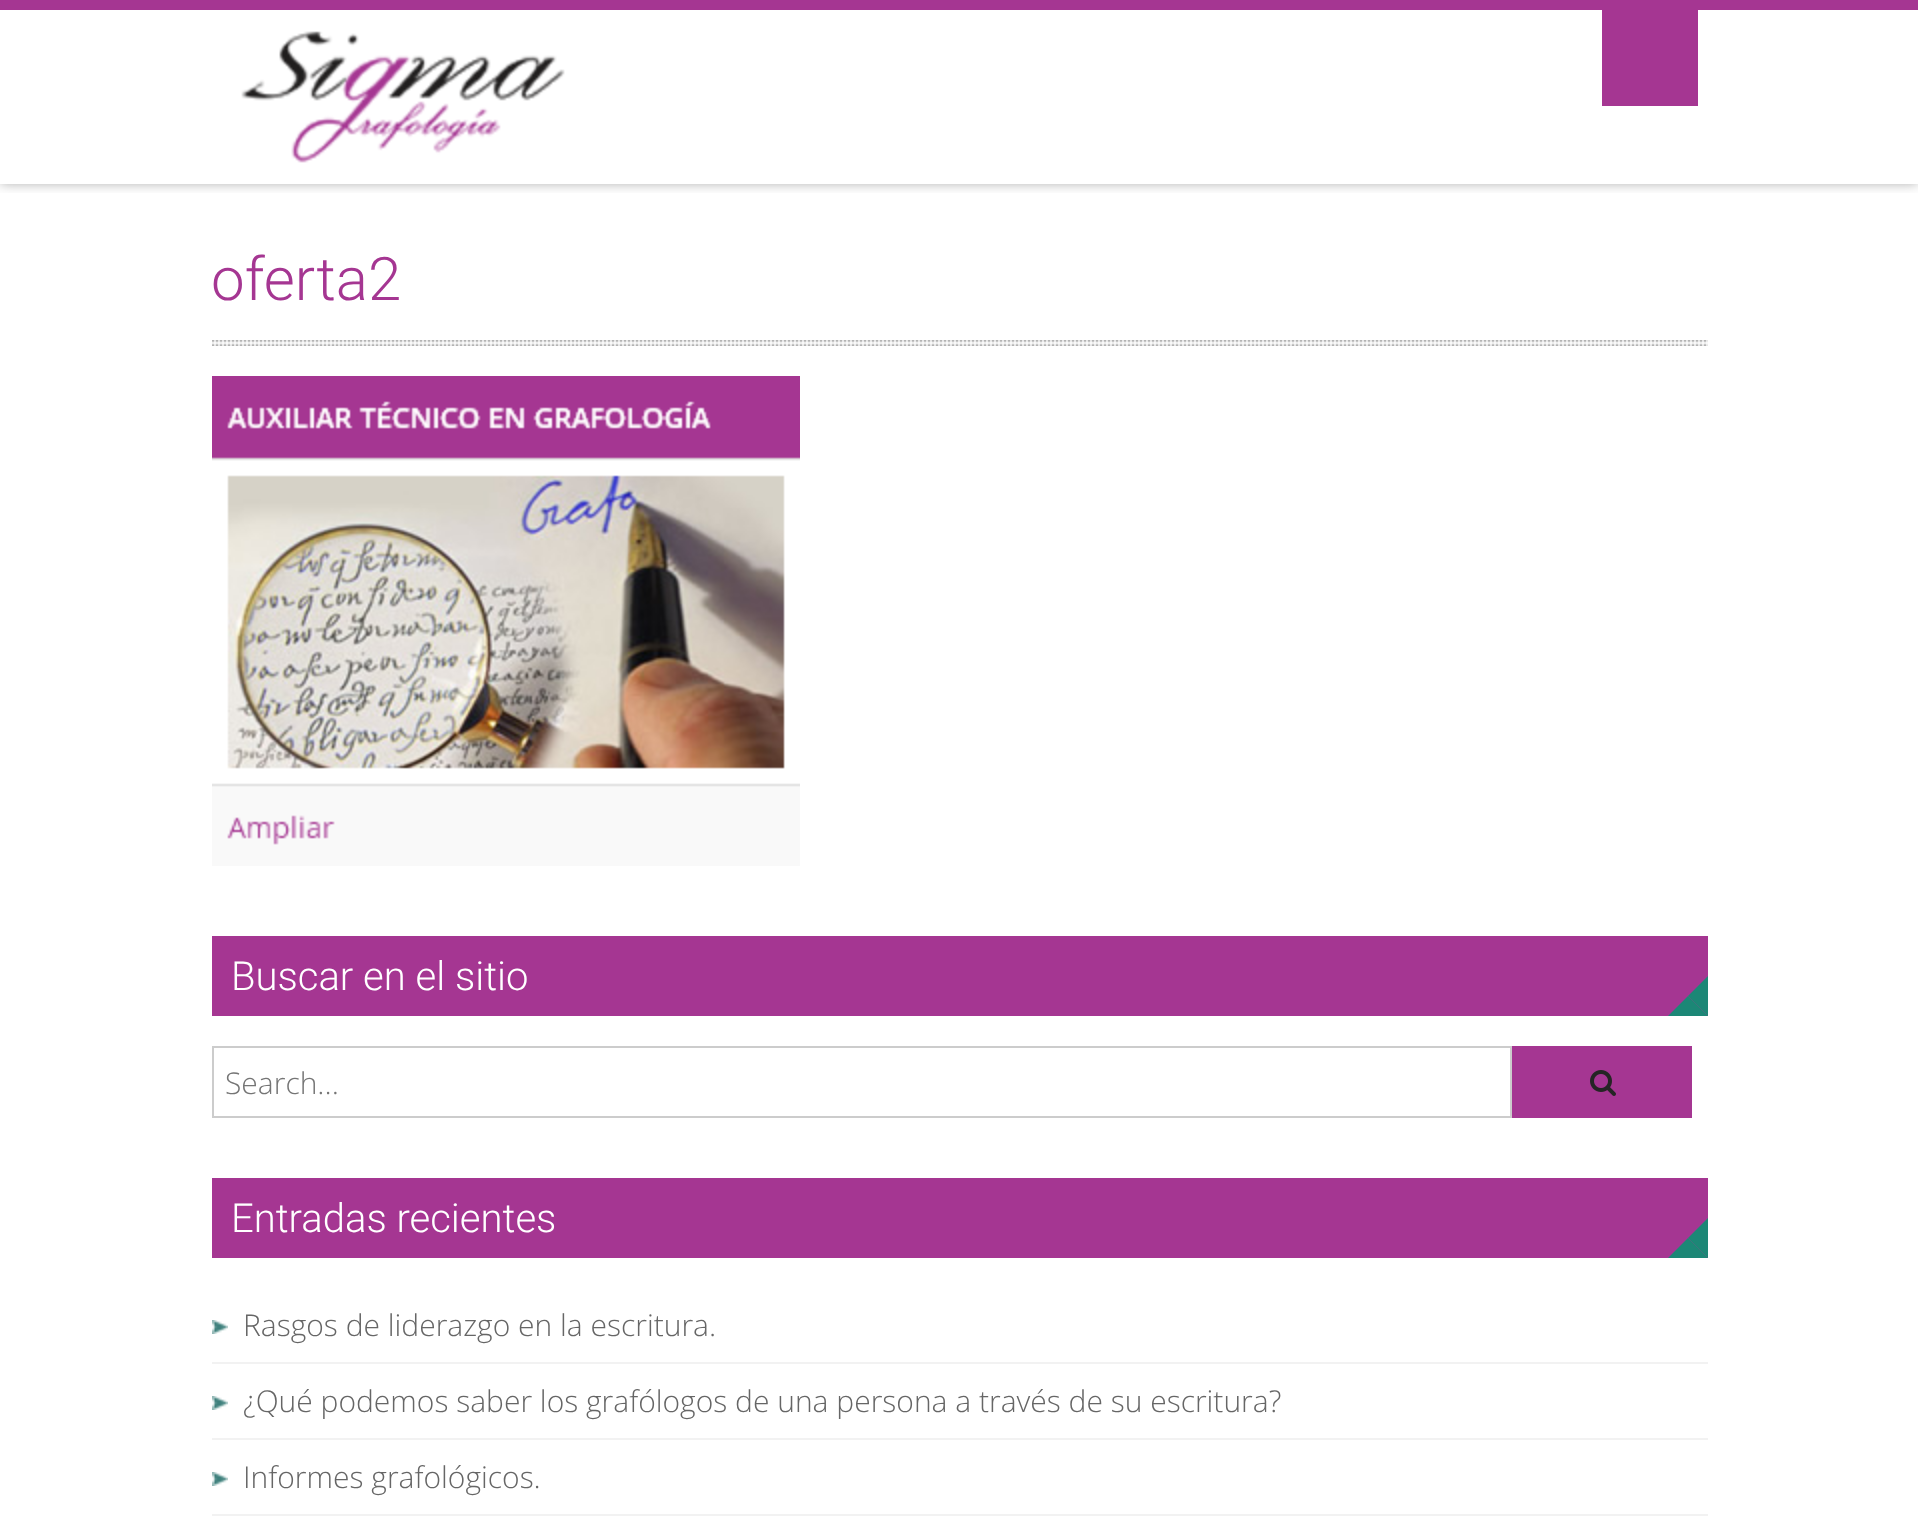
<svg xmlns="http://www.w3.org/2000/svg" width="1918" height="1517">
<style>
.a{font:300 60px Roboto;fill:#a53692}
.b{font:300 40px Roboto;fill:#fff}
.c{font:300 30px Open Sans;fill:#757575}
.d{font:300 30px Open Sans;fill:#666}
</style>
<defs>
<clipPath id="clip1"><path d="M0 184h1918v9H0z"/></clipPath>
</defs>
<rect width="100%" height="100%" fill="#fff"/>
<g clip-path="url(#clip1)">
<path fill="#0000004d" filter="blur(6px)" d="M0 0h1918v184H0z"/>
</g>
<path fill="#a53692" d="M0 0h1918v10H0z"/>
<image href="1.png" x="241" y="31" width="324" height="132"/>
<path fill="#a53692" d="M1602 10h96v96H1602z"/>
<image href="2.png" x="212" y="340" width="1496" height="6"/>
<image href="3.png" x="212" y="376" width="588" height="490"/>
<path fill="#a53692" d="M212 936h1496v80H212z"/>
<path fill="#1c8776" d="M1708 976v40l-20-20z"/>
<path fill="#1c8776" d="M1708 1016h-40l20-20z"/>
<path fill="none" stroke="#ccc" stroke-width="2" d="M213 1047h1298v70H213z"/>
<path fill="#a53692" d="M1512 1046h180v72H1512z"/>
<image href="4.png" x="1590" y="1070" width="26" height="26"/>
<path fill="#a53692" d="M212 1178h1496v80H212z"/>
<path fill="#1c8776" d="M1708 1218v40l-20-20z"/>
<path fill="#1c8776" d="M1708 1258h-40l20-20z"/>
<image href="5.png" x="212" y="1320" width="16" height="14"/>
<path fill="#f2f2f2" d="M212 1362h1496v2H212z"/>
<image href="5.png" x="212" y="1396" width="16" height="14"/>
<path fill="#f2f2f2" d="M212 1438h1496v2H212z"/>
<image href="5.png" x="212" y="1472" width="16" height="14"/>
<path fill="#f2f2f2" d="M212 1514h1496v2H212z"/>
<text class="a" x="211" y="300">oferta2</text>
<text class="b" x="231" y="990">Buscar en el sitio</text>
<text class="c" x="225" y="1094">Search...</text>
<text class="b" x="231" y="1232">Entradas recientes</text>
<text class="d" x="243" y="1336">Rasgos de liderazgo en la escritura.</text>
<text class="d" x="243" y="1412">¿Qué podemos saber los grafólogos de una persona a través de su escritura?</text>
<text class="d" x="243" y="1488">Informes grafológicos.</text>
</svg>
